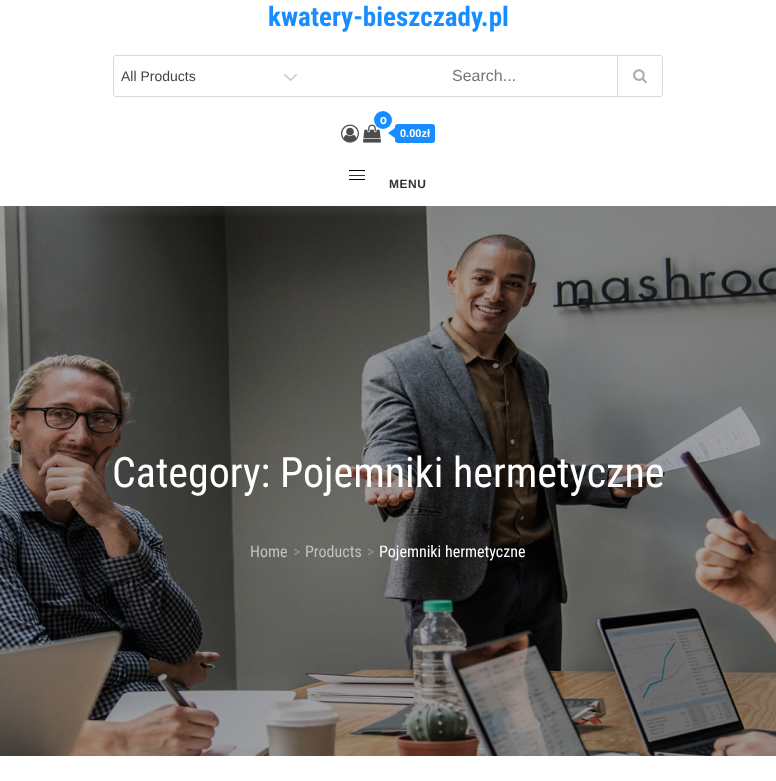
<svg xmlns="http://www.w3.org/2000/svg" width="776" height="781">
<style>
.a{font:bold 27px Roboto Condensed;fill:#178dff}
.b{font:14px Liberation Sans;fill:#3f444d}
.c{font:16px Liberation Sans;fill:#757575}
.d{font:bold 10px Montserrat;fill:#fff}
.e{font:bold 11px Liberation Sans;fill:#fff}
.f{font:bold 12px Liberation Sans;letter-spacing:0.5px;fill:#333}
.g{font:42px Roboto Condensed;fill:#fff}
.h{font:16px Roboto Condensed;fill:#c1c1bf}
.i{font:16px Roboto Condensed;fill:#949591}
.j{font:16px Roboto Condensed;fill:#fff}
</style>
<defs>
<clipPath id="clip1"><path d="M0 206h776v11H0z"/></clipPath>
</defs>
<rect width="100%" height="100%" fill="#fff"/>
<image href="5.png" x="0" y="206" width="776" height="550"/>
<g clip-path="url(#clip1)">
<path fill="#8282822e" filter="blur(4px)" d="M3 12h770v200H3z"/>
</g>
<rect fill="none" stroke="#d9d9d9" x="113.5" y="55.5" width="549" height="41" rx="2.5"/>
<image href="1.png" x="284" y="74" width="13" height="7"/>
<path fill="#fff" d="M660 56h2v40H660z"/>
<path fill="#d9d9d9" d="M617 56h1v40H617z"/>
<image href="2.png" x="633" y="69" width="14" height="15"/>
<image href="3.png" x="341" y="124" width="18" height="19"/>
<image href="4.png" x="363" y="124" width="18" height="19"/>
<circle fill="#178dff" cx="383" cy="120" r="9"/>
<rect fill="#178dff" x="395" y="124" width="40" height="19" rx="3"/>
<path fill="#178dff" d="M395 128v10l-7-5z"/>
<path fill="#000" d="M349 170h16v1H349z"/>
<path fill="#333" d="M349 175h16v1H349z"/>
<path fill="#000" d="M349 179h16v1H349z"/>
<text class="a" x="268" y="26">kwatery-bieszczady.pl</text>
<text class="b" x="121" y="81">All Products</text>
<text class="c" x="452" y="81">Search...</text>
<text class="d" x="380" y="124">0</text>
<text class="e" x="400" y="137">0.00zł</text>
<text class="f" x="389" y="188">MENU</text>
<text class="g" x="112" y="487">Category: Pojemniki hermetyczne</text>
<text class="h" x="250" y="557">Home</text>
<text class="i" x="293" y="557">&gt;</text>
<text class="h" x="305" y="557">Products</text>
<text class="i" x="367" y="557">&gt;</text>
<text class="j" x="379" y="557">Pojemniki hermetyczne</text>
</svg>
